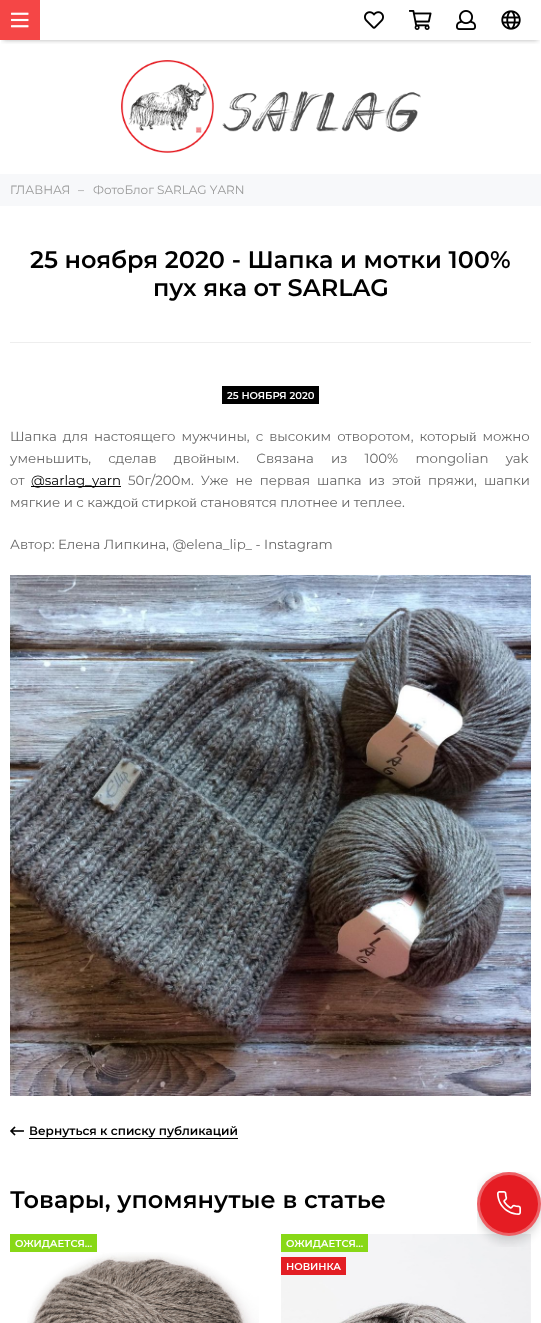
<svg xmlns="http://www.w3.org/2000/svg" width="541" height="1323">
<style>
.a{font:12px Montserrat;fill:#999}
.b{font:600 24px Montserrat;fill:#000}
.c{font:600 10px Montserrat;fill:#fff}
.d{font:13.35px Montserrat;fill:#666}
.e{font:13.35px Montserrat;fill:#000}
.f{font:600 12px Montserrat;fill:#000}
</style>
<defs>
<clipPath id="clip1"><path d="M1 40h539v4H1z"/></clipPath>
</defs>
<rect width="100%" height="100%" fill="#fff"/>
<g clip-path="url(#clip1)">
<path fill="#0000004d" filter="blur(2.5px)" d="M3 6h535v34H3z"/>
</g>
<path fill="#f54646" d="M0 0h40v40H0z"/>
<image href="1.png" x="11" y="12" width="18" height="16"/>
<image href="2.png" x="364" y="11" width="20" height="18"/>
<image href="3.png" x="409" y="10" width="23" height="20"/>
<image href="4.png" x="456" y="10" width="20" height="20"/>
<image href="5.png" x="501" y="10" width="20" height="20"/>
<image href="6.png" x="121" y="60" width="300" height="93"/>
<path fill="#f7f8fa" d="M0 174h541v32H0z"/>
<path fill="#eee" d="M10 342h521v1H10z"/>
<path fill="#000" d="M222 386h97v18H222z"/>
<path fill="#000" d="M31 486h90v1H31z"/>
<image href="7.png" x="10" y="575" width="521" height="521"/>
<image href="8.png" x="10" y="1126" width="14" height="10"/>
<path fill="#000" d="M29 1138h209v1H29z"/>
<path fill="#88d817" d="M10 1234h87v18H10z"/>
<image href="9.png" x="27" y="1252" width="232" height="71"/>
<image href="10.png" x="281" y="1234" width="250" height="89"/>
<path fill="#88d817" d="M281 1234h87v18H281z"/>
<path fill="#e31e24" d="M281 1257h65v18H281z"/>
<image href="11.png" x="477" y="1172" width="64" height="75"/>
<text class="a" x="10" y="194">ГЛАВНАЯ</text>
<text class="a" x="78" y="194">–</text>
<text class="a" x="93" y="194">ФотоБлог SARLAG YARN</text>
<text class="b" x="30" y="268">25 ноября 2020 - Шапка и мотки 100%</text>
<text class="b" x="153" y="296">пух яка от SARLAG</text>
<text class="c" x="227" y="399">25 НОЯБРЯ 2020</text>
<text class="d" x="10" y="441" word-spacing="2.5">Шапка для настоящего мужчины, с высоким отворотом, который можно</text>
<text class="d" x="10" y="463" word-spacing="13.75">уменьшить, сделав двойным. Связана из 100% mongolian yak</text>
<text class="d" x="10" y="485">от</text>
<text class="e" x="31" y="485">@sarlag_yarn</text>
<text class="d" x="128" y="485" word-spacing="3.5">50г/200м. Уже не первая шапка из этой пряжи, шапки</text>
<text class="d" x="10" y="507">мягкие и с каждой стиркой становятся плотнее и теплее.</text>
<text class="d" x="10" y="549">Автор: Елена Липкина, @elena_lip_ - Instagram</text>
<text class="f" x="29" y="1135">Вернуться к списку публикаций</text>
<text class="b" x="10" y="1208">Товары, упомянутые в статье</text>
<text class="c" x="15" y="1247">ОЖИДАЕТСЯ...</text>
<text class="c" x="286" y="1247">ОЖИДАЕТСЯ...</text>
<text class="c" x="286" y="1270">НОВИНКА</text>
</svg>
